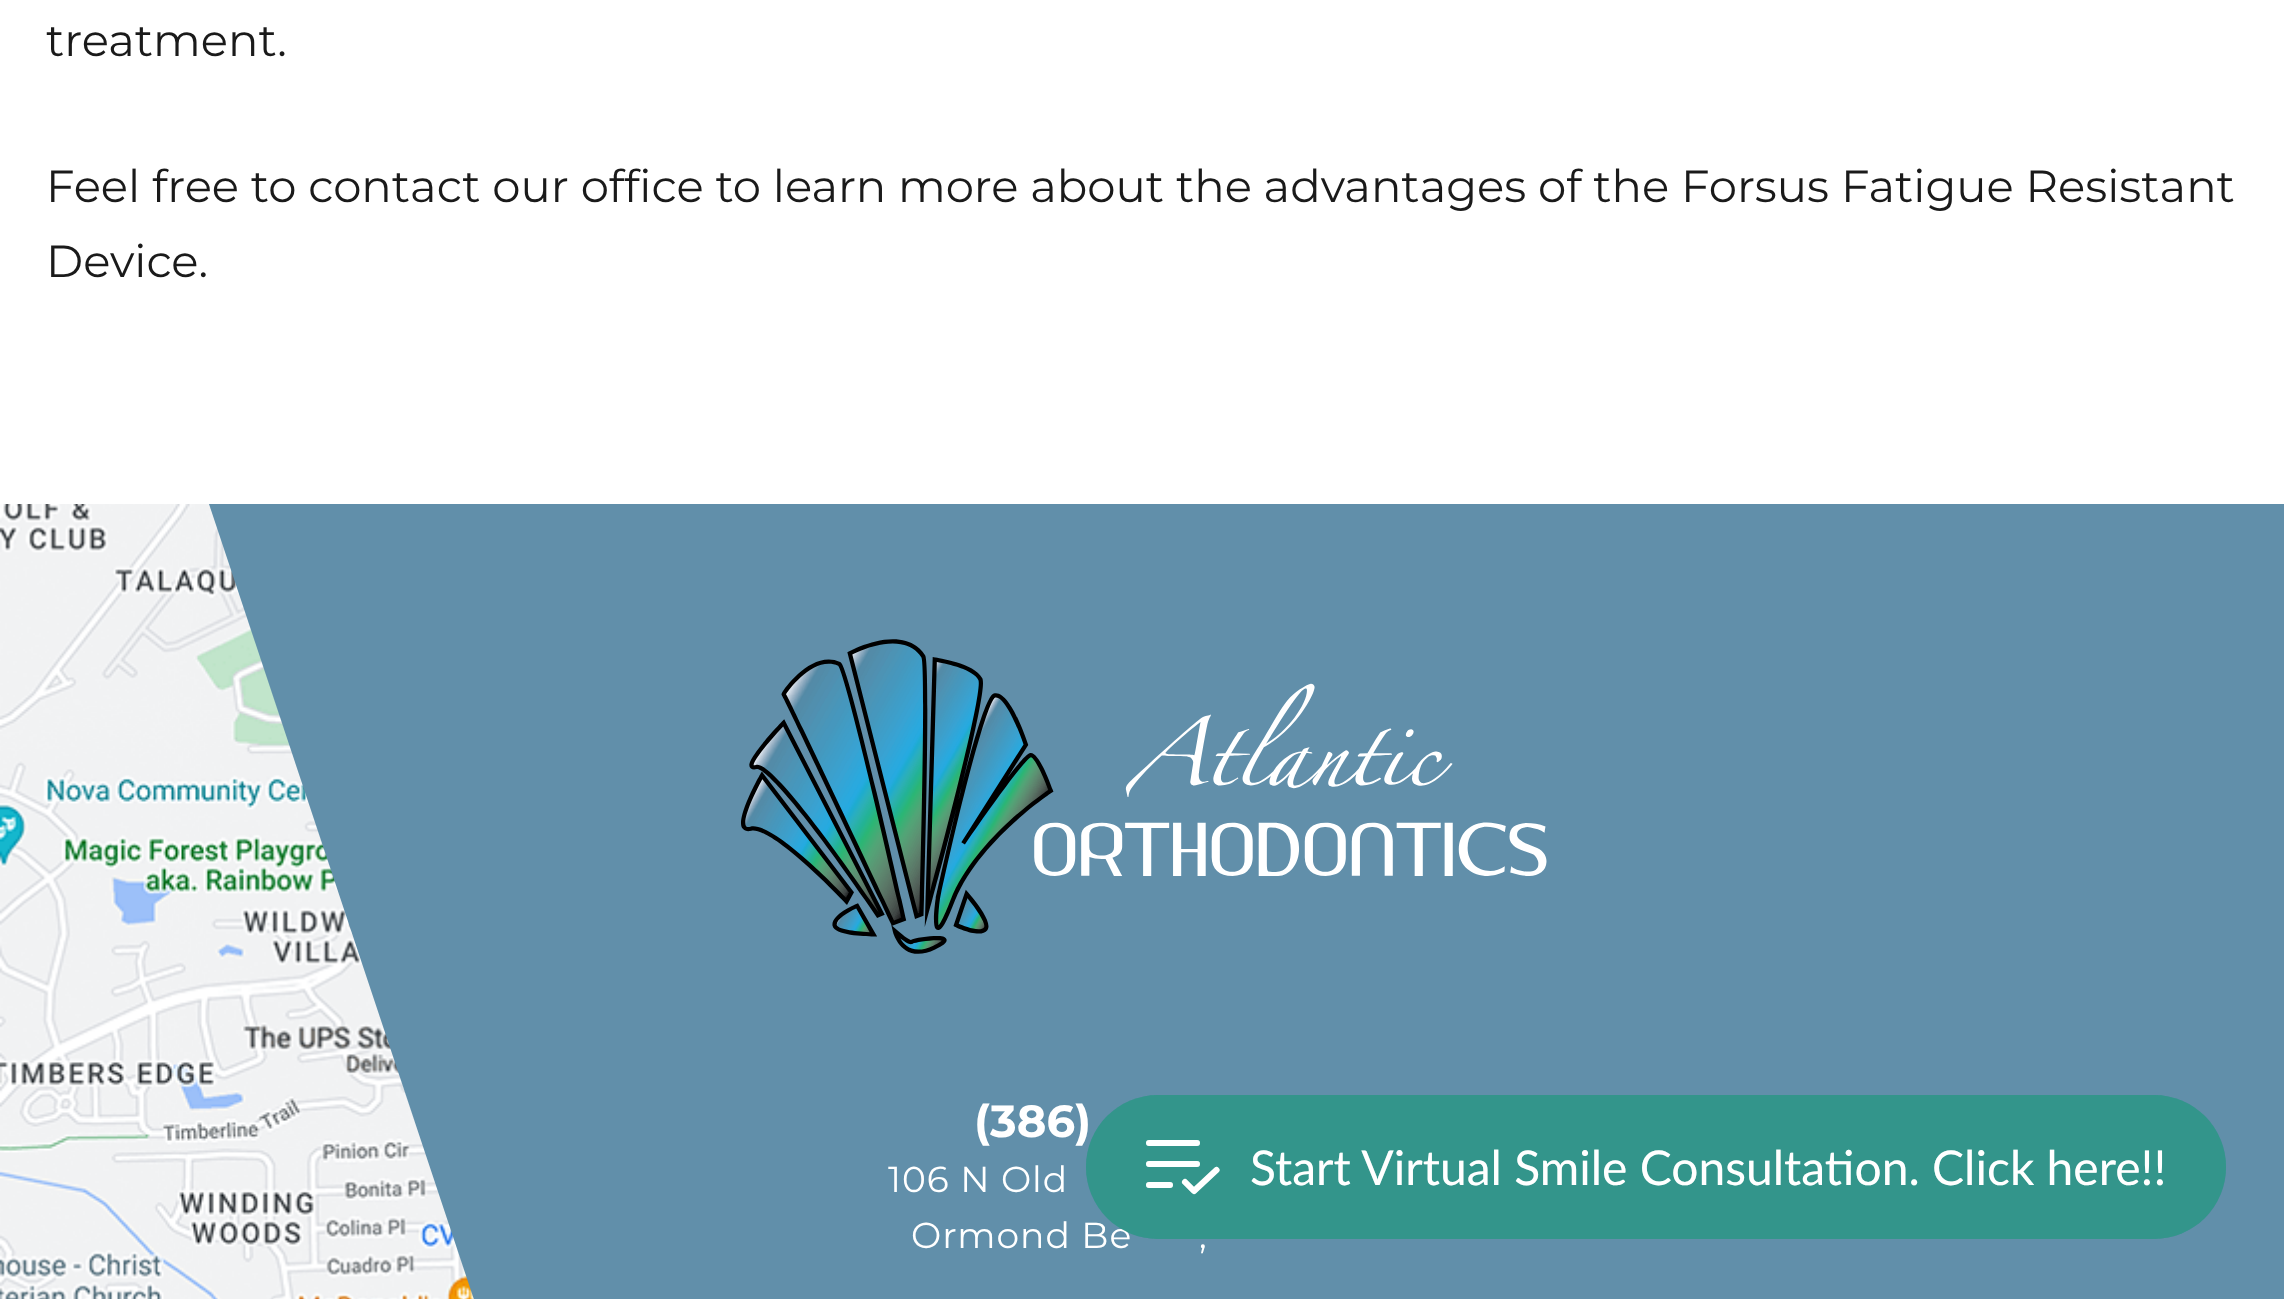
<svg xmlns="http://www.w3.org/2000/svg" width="2284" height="1299">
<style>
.a{font:45px Montserrat;fill:#1a1a1a}
.b{font:bold 45px Montserrat;fill:#fff}
.c{font:36px Montserrat;letter-spacing:1px;fill:#fff}
.d{font:48px Lato;fill:#fff}
</style>
<rect width="100%" height="100%" fill="#fff"/>
<image href="1.png" x="0" y="504" width="474" height="795"/>
<path fill="#618faa" d="M209 504h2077v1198h-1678z"/>
<image href="2.png" x="741" y="639" width="806" height="315"/>
<text class="a" x="46" y="56">treatment.</text>
<text class="a" x="46" y="202">Feel free to contact our office to learn more about the advantages of the Forsus Fatigue Resistant</text>
<text class="a" x="46" y="277">Device.</text>
<text class="b" x="974" y="1137">(386)</text>
<text class="c" x="888" y="1192">106 N Old</text>
<text class="c" x="911" y="1248">Ormond Be</text>
<text class="c" x="1199" y="1248">,</text>
<rect fill="#2e9688ad" x="1086" y="1095" width="1140" height="144" rx="72"/>
<path fill="none" stroke="#fff" stroke-width="6" stroke-linecap="round" d="M1149 1143h48m-48 21h48m-48 21h21"/>
<path fill="none" stroke="#fff" stroke-width="6" stroke-linecap="round" stroke-linejoin="round" d="M1185 1182l9 9l22.5-21"/>
<text class="d" x="1250" y="1185">Start Virtual Smile Consultation. Click here!!</text>
<rect fill="#2e9688ad" x="1086" y="1095" width="1140" height="144" rx="72"/>
<path fill="none" stroke="#fff" stroke-width="6" stroke-linecap="round" d="M1149 1143h48m-48 21h48m-48 21h21"/>
<path fill="none" stroke="#fff" stroke-width="6" stroke-linecap="round" stroke-linejoin="round" d="M1185 1182l9 9l22.5-21"/>
<text class="d" x="1250" y="1185">Start Virtual Smile Consultation. Click here!!</text>
</svg>
